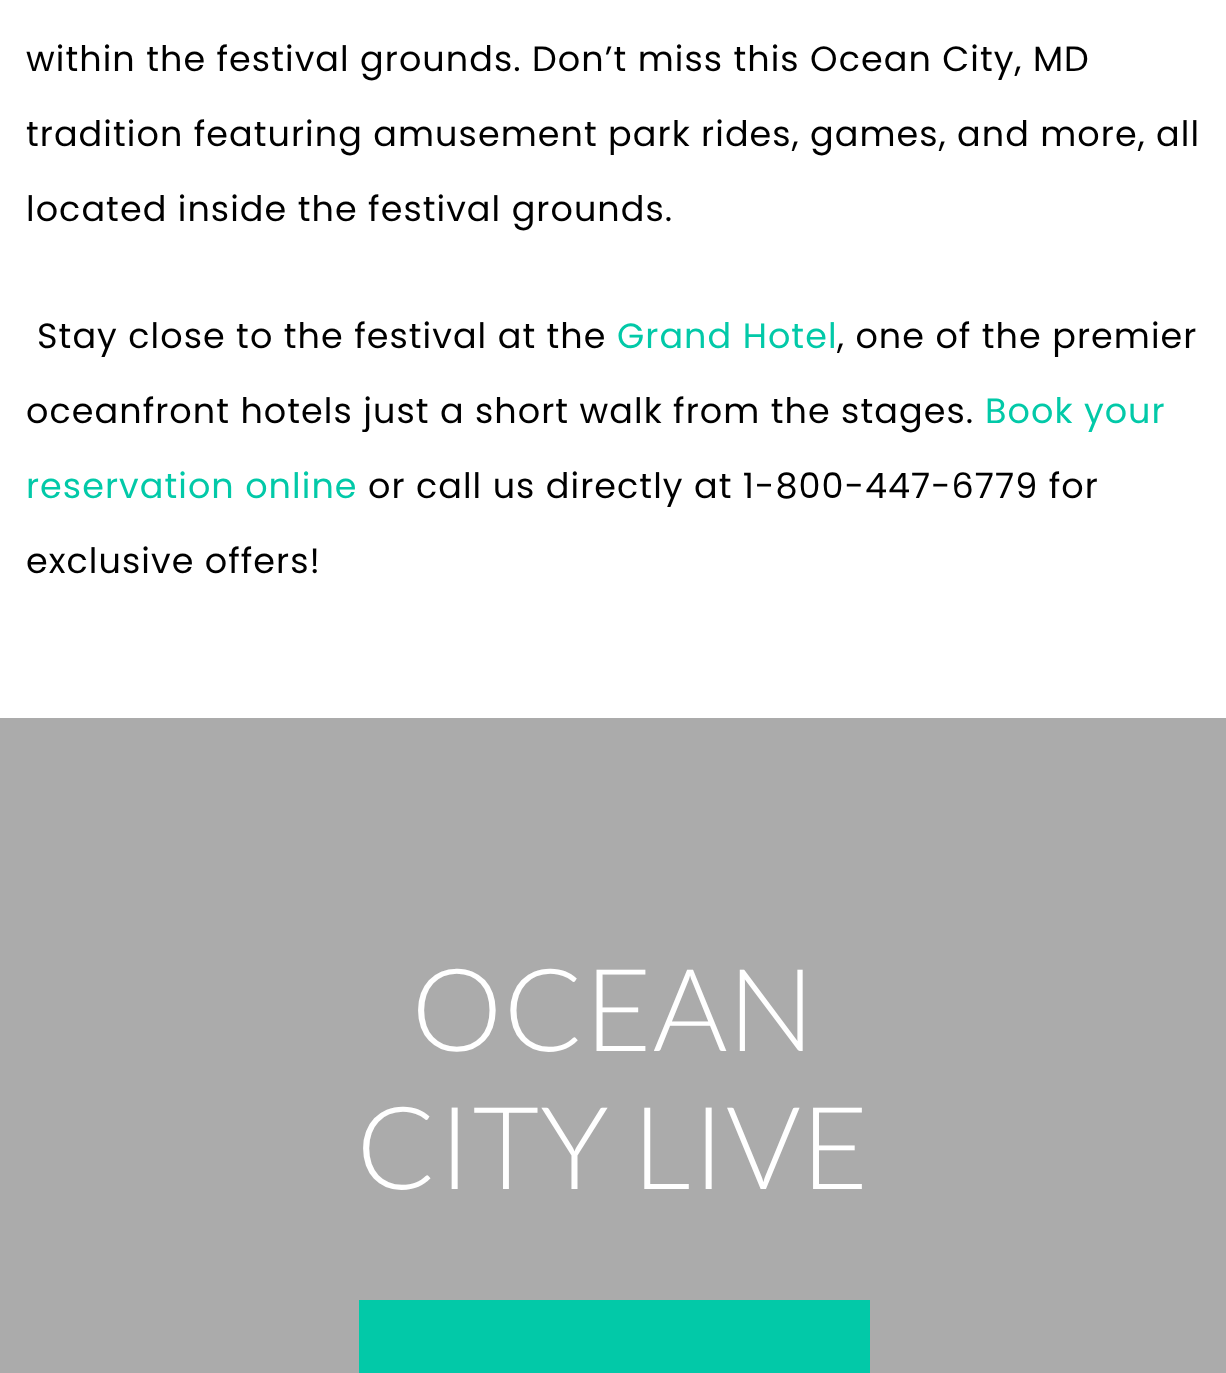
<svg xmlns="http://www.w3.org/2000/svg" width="1226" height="1373">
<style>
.a{font:35px Poppins;letter-spacing:1.05px;fill:#000}
.b{font:35px Poppins;letter-spacing:1.05px;fill:#02c9a8}
.c{font:300 115px Lato;letter-spacing:0.5px;fill:#fff}
</style>
<rect width="100%" height="100%" fill="#fff"/>
<path fill="#ababab" d="M0 718h1226v655H0z"/>
<path fill="#02c9a8" d="M359 1300h511v73H359z"/>
<text class="a" x="26" y="71">within the festival grounds. Don’t miss this Ocean City, MD</text>
<text class="a" x="26" y="146">tradition featuring amusement park rides, games, and more, all</text>
<text class="a" x="26" y="221">located inside the festival grounds.</text>
<text class="a" x="37" y="348">Stay close to the festival at the</text>
<text class="b" x="617" y="348">Grand Hotel</text>
<text class="a" x="837" y="348">, one of the premier</text>
<text class="a" x="26" y="423">oceanfront hotels just a short walk from the stages.</text>
<text class="b" x="985" y="423">Book your</text>
<text class="b" x="26" y="498">reservation online</text>
<text class="a" x="368" y="498">or call us directly at 1-800-447-6779 for</text>
<text class="a" x="26" y="573">exclusive offers!</text>
<text class="c" x="411" y="1051">OCEAN</text>
<text class="c" x="356" y="1189">CITY LIVE</text>
</svg>
